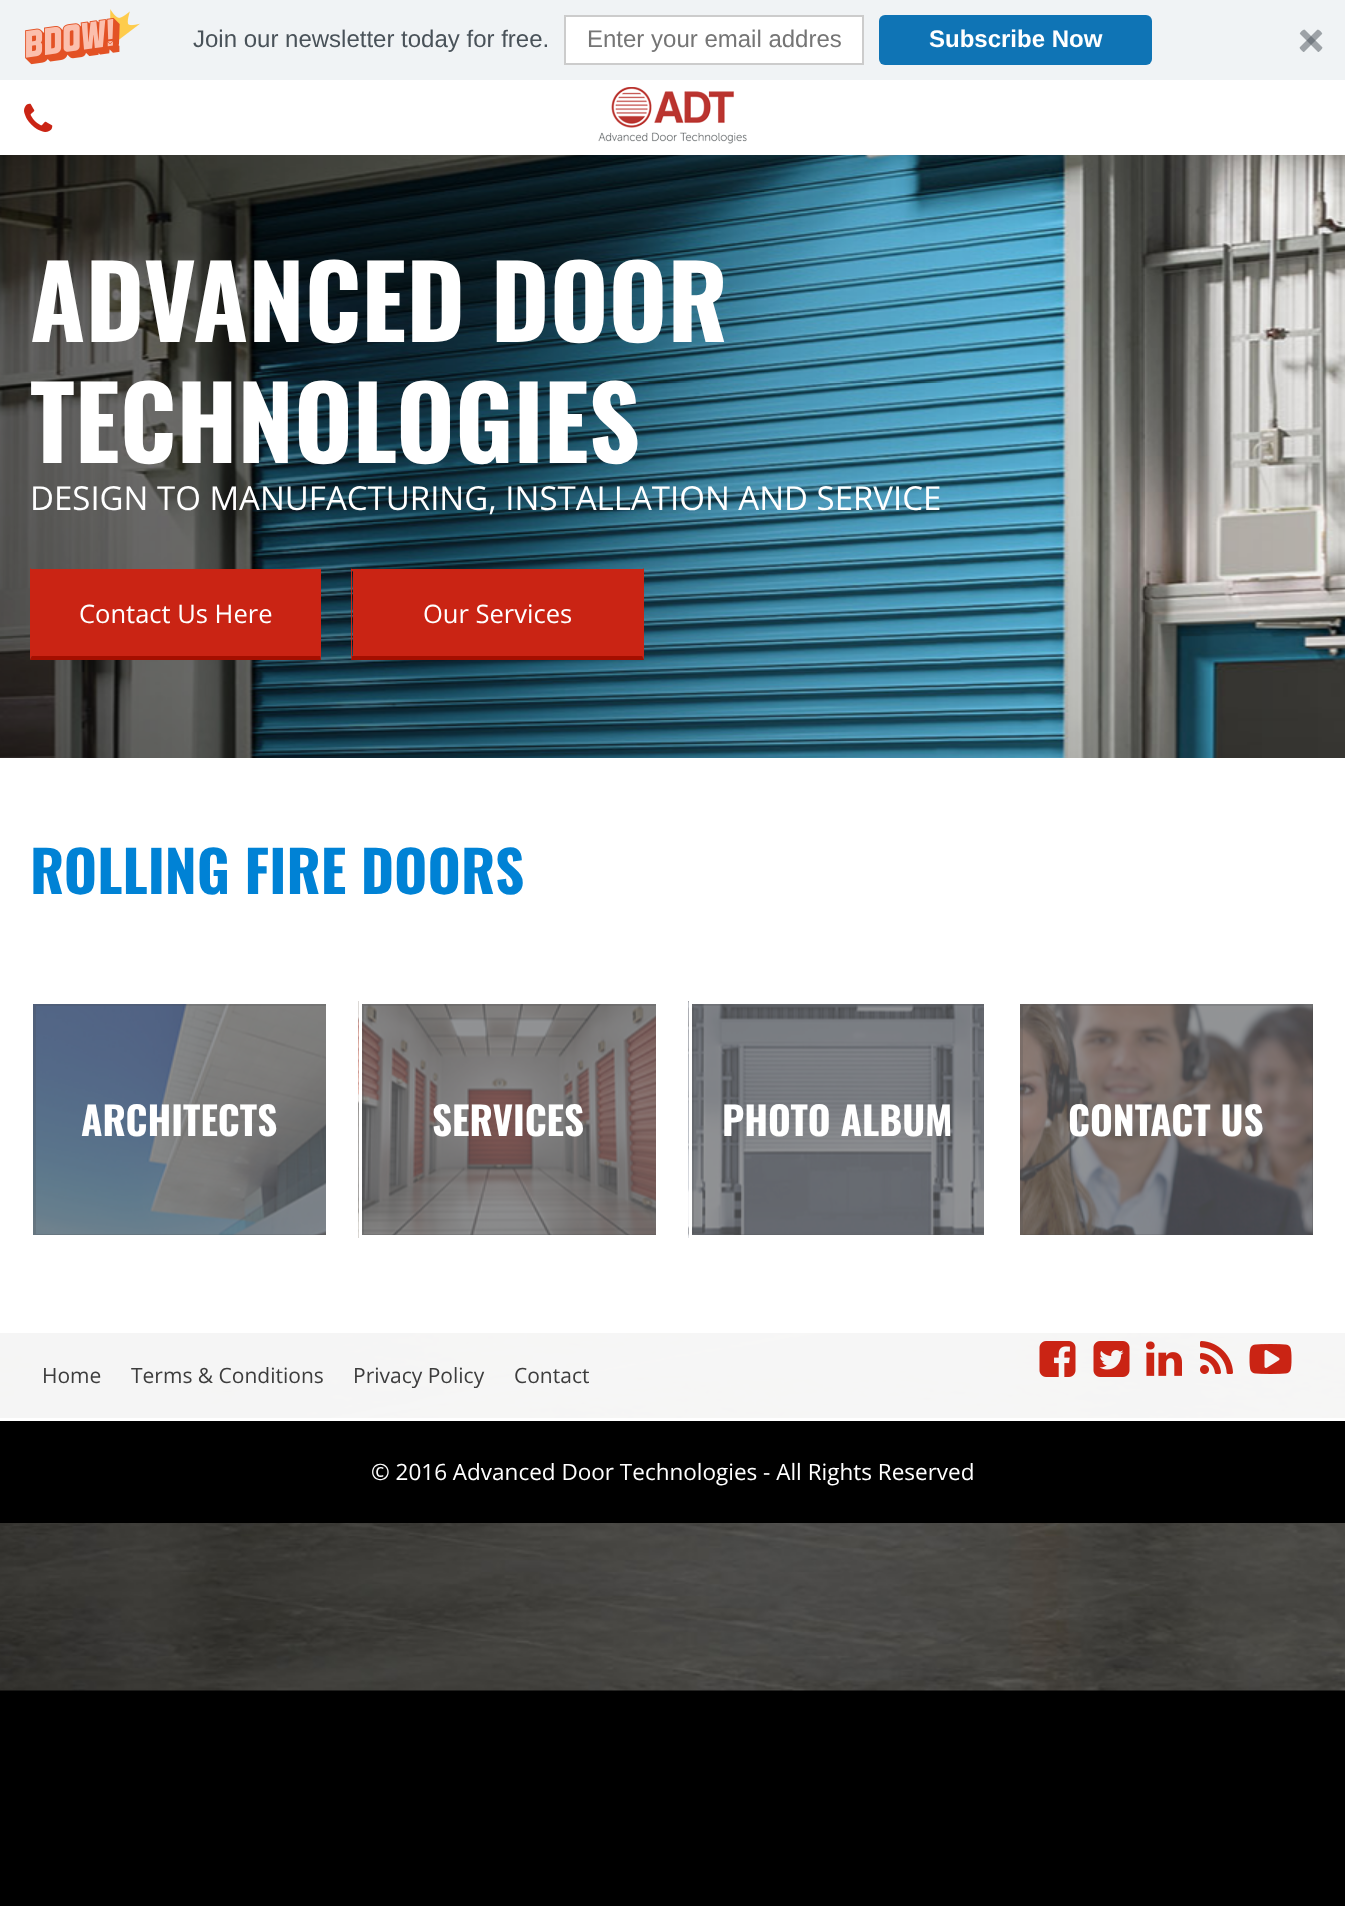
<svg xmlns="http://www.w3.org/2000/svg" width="1345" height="1906">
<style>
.a{font:24px Liberation Sans;fill:#495259}
.b{font:24px Liberation Sans;fill:#757575}
.c{font:bold 24px Liberation Sans;fill:#fff}
.d{font:bold 100.5px Oswald;fill:#fff}
.e{font:33px Open Sans;fill:#fff}
.f{font:25.5px Open Sans;fill:#fff}
.g{font:bold 57px Oswald;fill:#0082d5}
.h{font:bold 39px Oswald;fill:#fff}
.i{font:21px Open Sans;fill:#3d3d3d}
.j{font:22.5px Open Sans;fill:#fff}
</style>
<rect width="100%" height="100%" fill="#000"/>
<image href="1.png" x="0" y="155" width="1345" height="1536"/>
<path fill="#f0f3f5" d="M0 0h1345v80H0z"/>
<image href="2.png" x="25" y="9" width="115" height="56"/>
<path fill="#fff" stroke="#ccc" stroke-width="2" d="M565 16h298v48H565z"/>
<rect fill="#0f74b5" x="879" y="15" width="273" height="50" rx="6"/>
<image href="3.png" x="1299" y="29" width="24" height="23"/>
<path fill="#fff" d="M0 80h1345v75H0z"/>
<image href="4.png" x="24" y="103" width="29" height="29"/>
<image href="5.png" x="598" y="87" width="149" height="57"/>
<path fill="#ca2414" d="M32 571h288v85H32z"/>
<path fill="#ca2414" d="M30 569h291v2H30z"/>
<path fill="#ca2414" d="M321 568v92l-1-4v-86z"/>
<path fill="#a50f00" d="M321 660h-291l2-4h288z"/>
<path fill="#ca2414" d="M30 660v-92l2 2v86z"/>
<path fill="#ca2414" d="M353 571h289v85H353z"/>
<path fill="#ca2414" d="M351 569h293v2H351z"/>
<path fill="#ca2414" d="M644 568v92l-2-4v-86z"/>
<path fill="#a50f00" d="M644 660h-293l1-4h290z"/>
<path fill="#ca2414" d="M351 660v-92l1 2v86z"/>
<path fill="#fff" d="M0 758h1345v573H0z"/>
<image href="6.png" x="33" y="1004" width="293" height="231"/>
<image href="7.png" x="358" y="1001" width="298" height="237"/>
<path fill="none" stroke="#fff" stroke-width="3" d="M360.5 1002.5h297v234H360.5z"/>
<image href="8.png" x="688" y="1001" width="296" height="237"/>
<path fill="none" stroke="#fff" stroke-width="3" d="M690.5 1002.5h295v234H690.5z"/>
<image href="9.png" x="1020" y="1004" width="293" height="231"/>
<path fill="#fffffff2" d="M0 1333h1345v85H0z"/>
<path fill="#fff" d="M0 1331h1345v2H0z"/>
<path fill="#fff" d="M0 1418h1345v3H0z"/>
<image href="10.png" x="1039" y="1341" width="37" height="36"/>
<image href="11.png" x="1093" y="1341" width="37" height="36"/>
<image href="12.png" x="1146" y="1341" width="36" height="35"/>
<image href="13.png" x="1200" y="1341" width="33" height="33"/>
<image href="14.png" x="1249" y="1344" width="43" height="30"/>
<path fill="#000" d="M0 1421h1345v102H0z"/>
<text class="a" x="193" y="47">Join our newsletter today for free.</text>
<text class="b" x="587" y="47">Enter your email addres</text>
<text class="c" x="929" y="47">Subscribe Now</text>
<text class="d" x="30" y="342">ADVANCED DOOR</text>
<text class="d" x="30" y="463">TECHNOLOGIES</text>
<text class="e" x="30" y="510">DESIGN TO MANUFACTURING, INSTALLATION AND SERVICE</text>
<text class="f" x="79" y="623">Contact Us Here</text>
<text class="f" x="423" y="623">Our Services</text>
<text class="g" x="30" y="894">ROLLING FIRE DOORS</text>
<text class="h" x="81" y="1136">ARCHITECTS</text>
<text class="h" x="432" y="1136">SERVICES</text>
<text class="h" x="722" y="1136">PHOTO ALBUM</text>
<text class="h" x="1068" y="1136">CONTACT US</text>
<text class="i" x="42" y="1383">Home</text>
<text class="i" x="131" y="1383">Terms &amp; Conditions</text>
<text class="i" x="353" y="1383">Privacy Policy</text>
<text class="i" x="514" y="1383">Contact</text>
<text class="j" x="371" y="1480">© 2016 Advanced Door Technologies - All Rights Reserved</text>
</svg>
